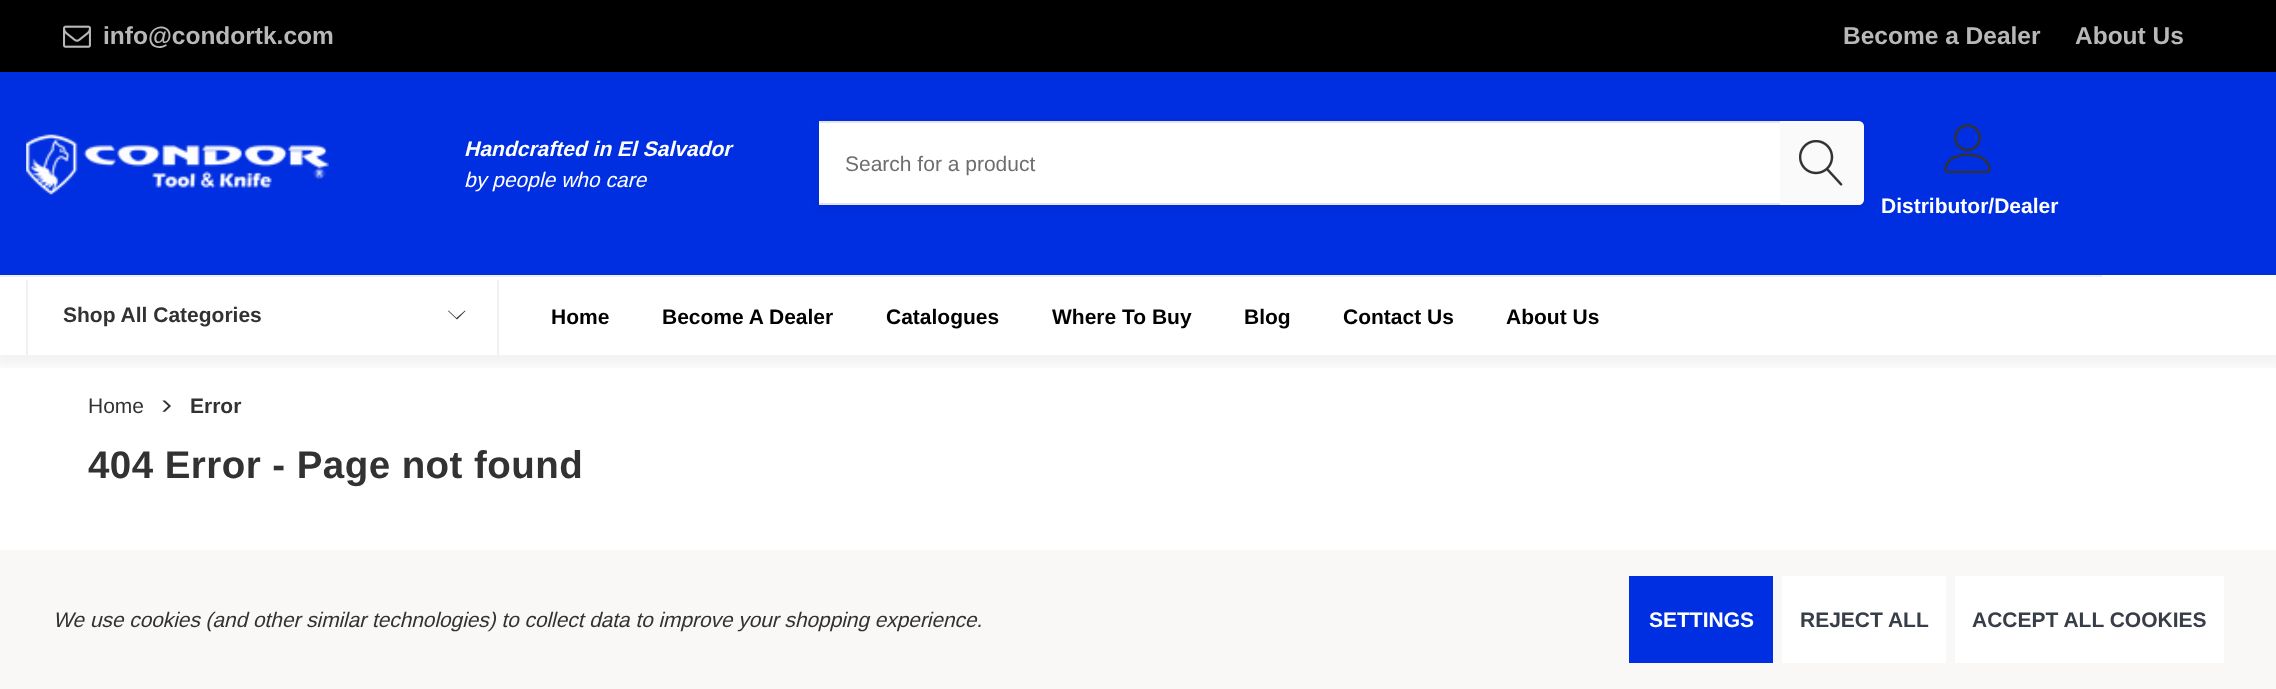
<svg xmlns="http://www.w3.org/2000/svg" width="2276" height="689">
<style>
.a{font:bold 24.5px Arimo;fill:#b8b8b8}
.b{font:italic bold 21px Arimo;fill:#fff}
.c{font:italic 21px Arimo;fill:#fff}
.d{font:21px Arimo;fill:#6e6e6e}
.e{font:bold 21px Arimo;fill:#fff}
.f{font:bold 21px Arimo;fill:#323232}
.g{font:bold 21px Arimo;fill:#000}
.h{font:21px Arimo;fill:#323232}
.i{font:24.5px Poppins;fill:#323232}
.j{font:bold 38.5px Arimo;letter-spacing:0.45px;fill:#323232}
.k{font:italic 21px Arimo;letter-spacing:-0.09px;fill:#323232}
.l{font:bold 21px Arimo;fill:#383e47}
</style>
<defs>
<clipPath id="clip1"><path d="M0 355h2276v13H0z"/></clipPath>
</defs>
<rect width="100%" height="100%" fill="#fff"/>
<g clip-path="url(#clip1)">
<path fill="#0000000d" filter="blur(7px)" d="M-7 -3h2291v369H-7z"/>
</g>
<path fill="#000" d="M0 0h2276v72H0z"/>
<image href="1.png" x="63" y="25" width="28" height="23"/>
<path fill="#002fe1" d="M0 72h2276v203H0z"/>
<image href="2.png" x="26" y="134" width="303" height="61"/>
<path fill="#00000012" filter="blur(5px)" d="M819 123h1045v84H819z"/>
<path fill="#fff" d="M819 123h961v80H819z"/>
<path fill="#e2e4e8" d="M819 121h961v2H819z"/>
<path fill="#e2e4e8" d="M819 203h961v2H819z"/>
<path fill="#fafafa" stroke="#fafafa" stroke-width="2" d="M1781 122h78c2 0 4 2 4 4v74c0 2-2 4-4 4h-78z"/>
<image href="3.png" x="1799" y="140" width="44" height="46"/>
<image href="4.png" x="1944" y="124" width="47" height="49"/>
<path fill="#eee" d="M0 275h2102v2H0z"/>
<path fill="#f0f0f0" d="M497 280h2v75H497z"/>
<path fill="#f0f0f0" d="M26 280h2v75H26z"/>
<path fill="#323232" fill-rule="evenodd" d="M456.5 318l8.5-7.5l.5 .5l-8.5 8.5l-9-8.5l.5-.5z"/>
<path fill="#faf8f6" d="M0 550h2276v139H0z"/>
<path fill="#002fe1" d="M1629 576h144v87H1629z"/>
<path fill="#fff" d="M1782 576h164v87H1782z"/>
<path fill="#fff" d="M1955 576h269v87H1955z"/>
<text class="a" x="103" y="44">info@condortk.com</text>
<text class="a" x="1843" y="44">Become a Dealer</text>
<text class="a" x="2075" y="44">About Us</text>
<text class="b" x="464" y="156">Handcrafted in El Salvador</text>
<text class="c" x="464" y="187">by people who care</text>
<text class="d" x="845" y="171">Search for a product</text>
<text class="e" x="1881" y="213">Distributor/Dealer</text>
<text class="f" x="63" y="322">Shop All Categories</text>
<text class="g" x="551" y="324">Home</text>
<text class="g" x="662" y="324">Become A Dealer</text>
<text class="g" x="886" y="324">Catalogues</text>
<text class="g" x="1052" y="324">Where To Buy</text>
<text class="g" x="1244" y="324">Blog</text>
<text class="g" x="1343" y="324">Contact Us</text>
<text class="g" x="1506" y="324">About Us</text>
<text class="h" x="88" y="413">Home</text>
<text class="i" x="160" y="415">&gt;</text>
<text class="f" x="190" y="413">Error</text>
<text class="j" x="88" y="478">404 Error - Page not found</text>
<text class="k" x="53" y="627">We use cookies (and other similar technologies) to collect data to improve your shopping experience.</text>
<text class="e" x="1649" y="627">SETTINGS</text>
<text class="l" x="1800" y="627">REJECT ALL</text>
<text class="l" x="1972" y="627">ACCEPT ALL COOKIES</text>
</svg>
